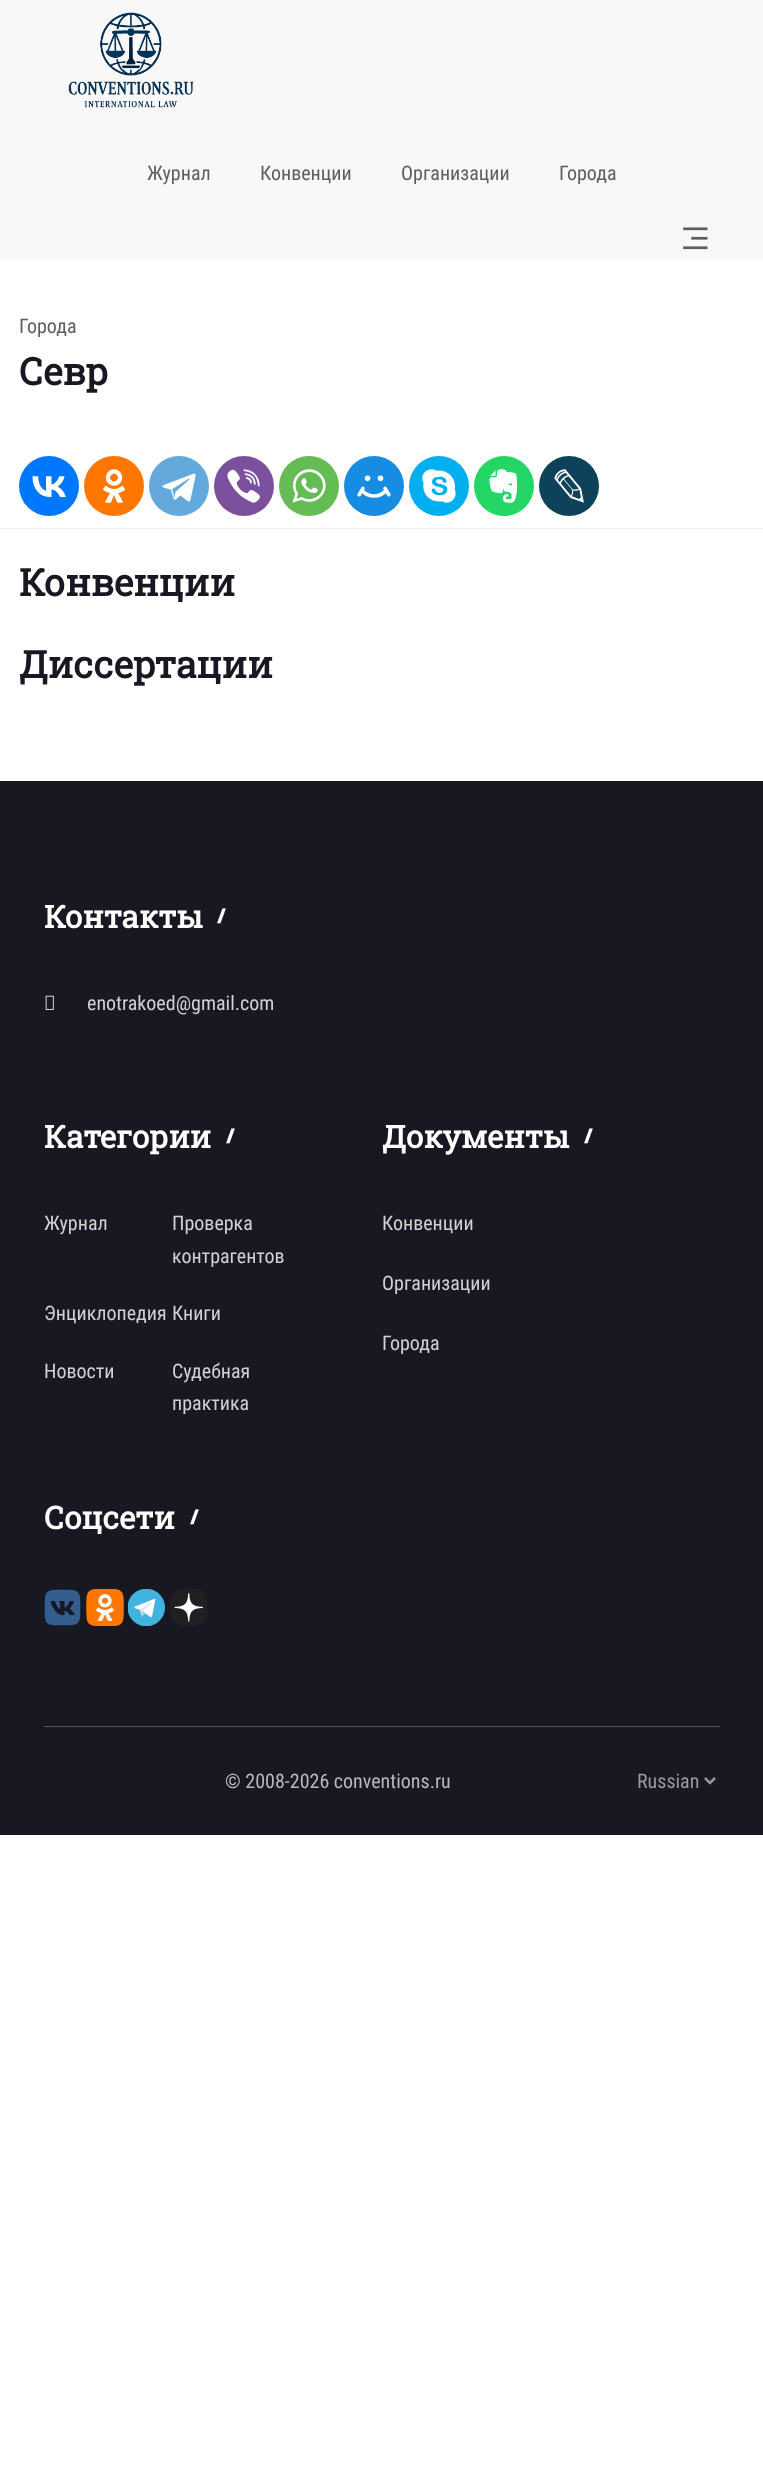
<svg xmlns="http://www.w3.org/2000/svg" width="763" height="2478">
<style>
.a{font:20px Roboto Condensed;fill:#5e5e5e}
.b{font:bold 37.5px Roboto Slab;fill:#181823}
.c{font:bold 31.25px Roboto Slab;fill:#fff}
.d{font:900 20px Noto Sans;fill:#fff}
.e{font:20px Roboto Condensed;fill:#d1d1d3}
.f{font:20px Roboto Condensed;fill:#b7b7bb}
.g{font:20px Roboto Condensed;fill:#999}
</style>
<rect width="100%" height="100%" fill="#fff"/>
<path fill="#f8f8f8" d="M0 0h763v260H0z"/>
<image href="1.png" x="68" y="12" width="126" height="96"/>
<image href="2.png" x="683" y="227" width="25" height="23"/>
<path fill="#eee" d="M0 528h763v1H0z"/>
<circle fill="#07f" cx="49" cy="486" r="30"/>
<image href="3.png" x="32" y="476" width="34" height="21"/>
<circle fill="#f70" cx="114" cy="486" r="30"/>
<image href="4.png" x="102" y="469" width="24" height="34"/>
<circle fill="#64a9dc" cx="179" cy="486" r="30"/>
<image href="5.png" x="162" y="473" width="34" height="29"/>
<circle fill="#7b519d" cx="244" cy="486" r="30"/>
<image href="6.png" x="227" y="469" width="33" height="34"/>
<circle fill="#65bc54" cx="309" cy="486" r="30"/>
<image href="7.png" x="292" y="469" width="34" height="34"/>
<circle fill="#168de2" cx="374" cy="486" r="30"/>
<image href="8.png" x="357" y="475" width="34" height="23"/>
<circle fill="#00aff0" cx="439" cy="486" r="30"/>
<image href="9.png" x="422" y="469" width="34" height="34"/>
<circle fill="#24d666" cx="504" cy="486" r="30"/>
<image href="10.png" x="489" y="469" width="29" height="34"/>
<circle fill="#0d425a" cx="569" cy="486" r="30"/>
<image href="11.png" x="554" y="469" width="30" height="34"/>
<path fill="#181823" d="M0 781h763v1054H0z"/>
<image href="12.png" x="45" y="995" width="9" height="15"/>
<image href="13.png" x="44" y="1589" width="37" height="37"/>
<image href="14.png" x="86" y="1589" width="38" height="37"/>
<image href="15.png" x="128" y="1589" width="37" height="37"/>
<image href="16.png" x="170" y="1589" width="37" height="37"/>
<path fill="#56565e" d="M44 1726h676v1H44z"/>
<path fill="none" stroke="#999" stroke-width="2.5" d="M705 1778l5 5l5-5"/>
<text class="a" x="147" y="180">Журнал</text>
<text class="a" x="260" y="180">Конвенции</text>
<text class="a" x="401" y="180">Организации</text>
<text class="a" x="559" y="180">Города</text>
<text class="a" x="19" y="333">Города</text>
<text class="b" x="19" y="385">Севр</text>
<text class="b" x="19" y="596">Конвенции</text>
<text class="b" x="19" y="678">Диссертации</text>
<text class="c" x="44" y="928">Контакты</text>
<text class="d" x="217" y="923">/</text>
<text class="e" x="87" y="1010">enotrakoed@gmail.com</text>
<text class="c" x="44" y="1148">Категории</text>
<text class="d" x="226" y="1143">/</text>
<text class="e" x="44" y="1230">Журнал</text>
<text class="e" x="172" y="1230">Проверка</text>
<text class="e" x="172" y="1263">контрагентов</text>
<text class="e" x="44" y="1320">Энциклопедия</text>
<text class="e" x="172" y="1320">Книги</text>
<text class="e" x="44" y="1378">Новости</text>
<text class="e" x="172" y="1378">Судебная</text>
<text class="e" x="172" y="1410">практика</text>
<text class="c" x="382" y="1148">Документы</text>
<text class="d" x="584" y="1143">/</text>
<text class="e" x="382" y="1230">Конвенции</text>
<text class="e" x="382" y="1290">Организации</text>
<text class="e" x="382" y="1350">Города</text>
<text class="c" x="44" y="1529">Соцсети</text>
<text class="d" x="190" y="1524">/</text>
<text class="f" x="225" y="1788">© 2008-2026 conventions.ru</text>
<text class="g" x="637" y="1788">Russian</text>
</svg>
